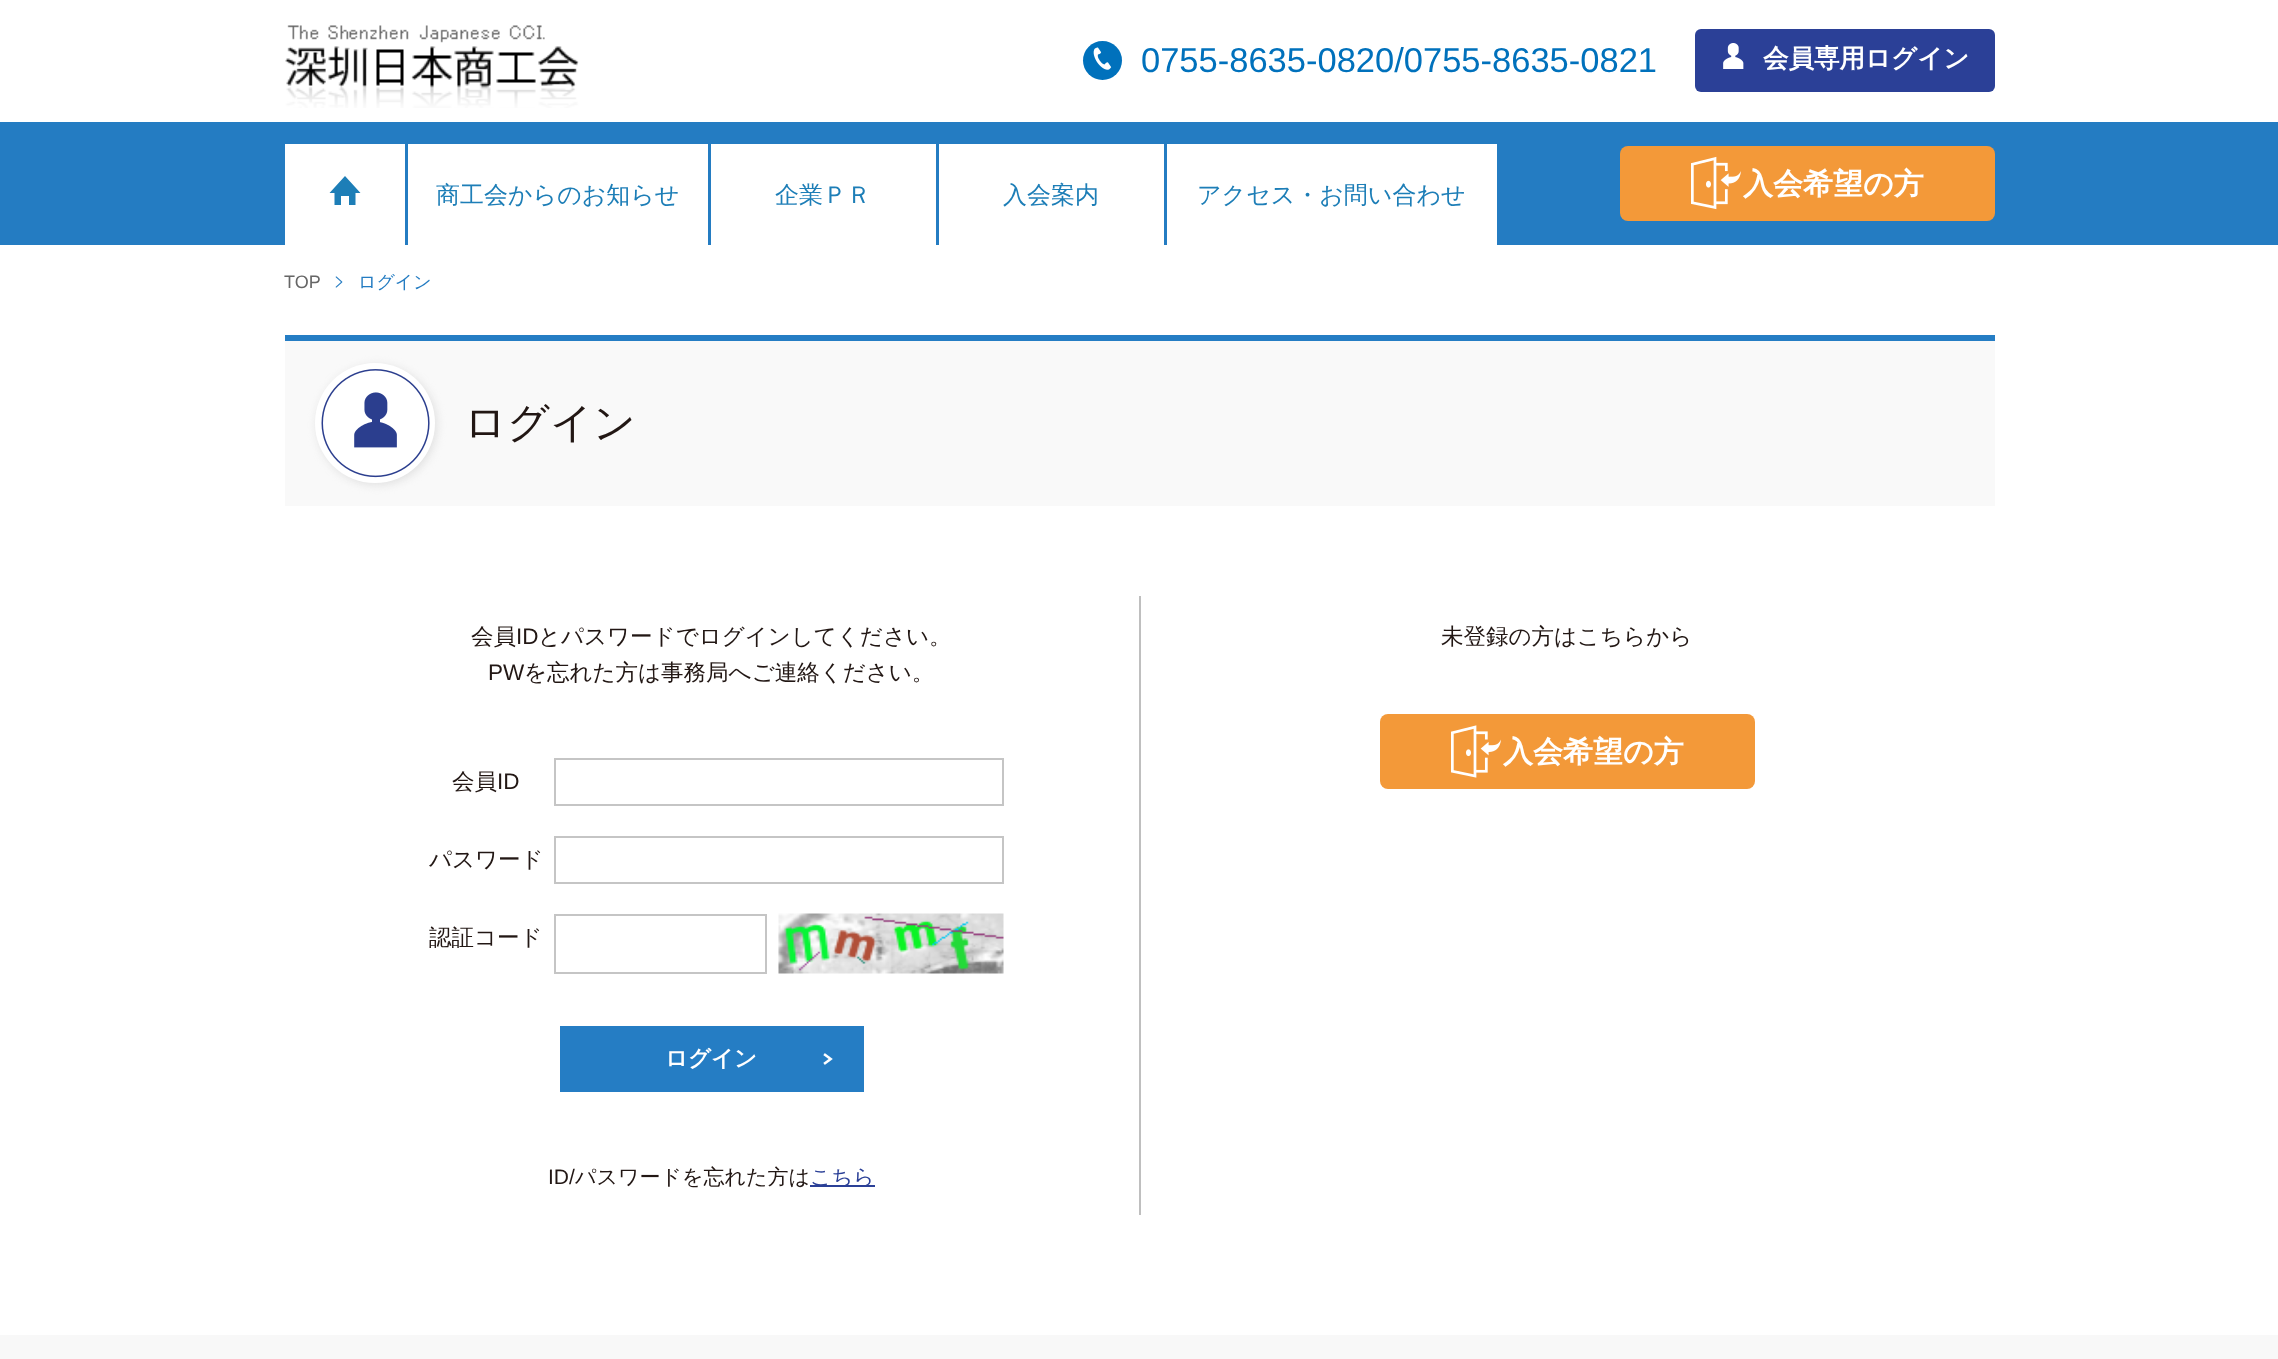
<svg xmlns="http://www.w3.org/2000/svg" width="2278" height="1359">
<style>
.a{font:34.5px Liberation Sans;fill:#0071bc}
.b{font:bold 25.5px WenQuanYi Zen Hei;fill:#fff}
.c{font:500 24px WenQuanYi Zen Hei;fill:#1d7eb7}
.d{font:bold 30px WenQuanYi Zen Hei;fill:#fff}
.e{font:18px Liberation Sans;fill:#666}
.f{font:500 18px WenQuanYi Zen Hei;fill:#247cc2}
.g{font:500 42px WenQuanYi Zen Hei;fill:#221714}
.h{font:500 22.5px WenQuanYi Zen Hei;fill:#221714}
.i{font:22.5px Liberation Sans;fill:#221714}
.j{font:bold 22.5px WenQuanYi Zen Hei;fill:#fff}
.k{font:21px Liberation Sans;fill:#221714}
.l{font:500 21px WenQuanYi Zen Hei;fill:#221714}
.m{font:500 21px WenQuanYi Zen Hei;fill:#2b4097}
</style>
<rect width="100%" height="100%" fill="#fff"/>
<image href="1.png" x="285" y="25" width="294" height="83"/>
<circle fill="#0071bc" cx="1102.5" cy="60.5" r="19.5"/>
<image href="2.png" x="1093" y="47" width="19" height="23"/>
<rect fill="#2b4097" x="1695" y="29" width="300" height="63" rx="6"/>
<image href="3.png" x="1723" y="43" width="21" height="26"/>
<path fill="#247cc2" d="M0 122h2278v123H0z"/>
<path fill="#fff" d="M285 144h120v101H285z"/>
<path fill="#1d7eb7" d="M360.5 193l-15.5-17l-15.5 17h5v12h6.5v-9h8v9h6.5v-12z"/>
<path fill="#fff" d="M408 144h300v101H408z"/>
<path fill="#fff" d="M711 144h225v101H711z"/>
<path fill="#fff" d="M939 144h225v101H939z"/>
<path fill="#fff" d="M1167 144h330v101H1167z"/>
<rect fill="#f39939" x="1620" y="146" width="375" height="75" rx="8"/>
<image href="4.png" x="1691" y="156" width="50" height="54"/>
<image href="5.png" x="335" y="276" width="8" height="12"/>
<path fill="#f9f9f9" d="M285 341h1710v165H285z"/>
<path fill="#257dc4" d="M285 335h1710v6H285z"/>
<rect fill="#e0e0e0" filter="blur(4px)" x="317" y="365" width="120" height="120" rx="60"/>
<circle fill="#fff" cx="375" cy="423" r="60"/>
<image href="6.png" x="321" y="369" width="109" height="109"/>
<path fill="#bfbfbf" d="M1139 596h2v619H1139z"/>
<path fill="none" stroke="#c5c5c5" stroke-width="2" d="M555 759h448v46H555z"/>
<path fill="none" stroke="#c5c5c5" stroke-width="2" d="M555 837h448v46H555z"/>
<path fill="none" stroke="#c5c5c5" stroke-width="2" d="M555 915h211v58H555z"/>
<image href="7.png" x="778" y="913" width="226" height="61"/>
<path fill="#257dc4" d="M560 1026h304v66H560z"/>
<image href="8.png" x="823" y="1053" width="10" height="12"/>
<path fill="#2b4097" d="M810 1185h65v2H810z"/>
<rect fill="#f39939" x="1380" y="714" width="375" height="75" rx="8"/>
<image href="9.png" x="1451" y="725" width="50" height="53"/>
<path fill="#f8f8f8" d="M0 1335h2278v24H0z"/>
<text class="a" x="1141" y="72">0755-8635-0820/0755-8635-0821</text>
<text class="b" x="1763" y="67">会員専用ログイン</text>
<text class="c" x="436" y="203">商工会からのお知らせ</text>
<text class="c" x="775" y="203">企業ＰＲ</text>
<text class="c" x="1003" y="203">入会案内</text>
<text class="c" x="1197" y="203">アクセス・お問い合わせ</text>
<text class="d" x="1743" y="194">入会希望の方</text>
<text class="e" x="284" y="288">TOP</text>
<text class="f" x="358" y="288">ログイン</text>
<text class="g" x="464" y="437">ログイン</text>
<text class="h" x="471" y="644">会員</text>
<text class="i" x="516" y="644">ID</text>
<text class="h" x="538" y="644">とパスワードでログインしてください。</text>
<text class="i" x="488" y="680">PW</text>
<text class="h" x="524" y="680">を忘れた方は事務局へご連絡ください。</text>
<text class="h" x="452" y="789">会員</text>
<text class="i" x="497" y="789">ID</text>
<text class="h" x="429" y="867">パスワード</text>
<text class="h" x="429" y="945">認証コード</text>
<text class="j" x="665" y="1066">ログイン</text>
<text class="k" x="548" y="1184">ID/</text>
<text class="l" x="575" y="1184">パスワードを忘れた方は</text>
<text class="m" x="810" y="1184">こちら</text>
<text class="h" x="1441" y="644">未登録の方はこちらから</text>
<text class="d" x="1503" y="762">入会希望の方</text>
</svg>
